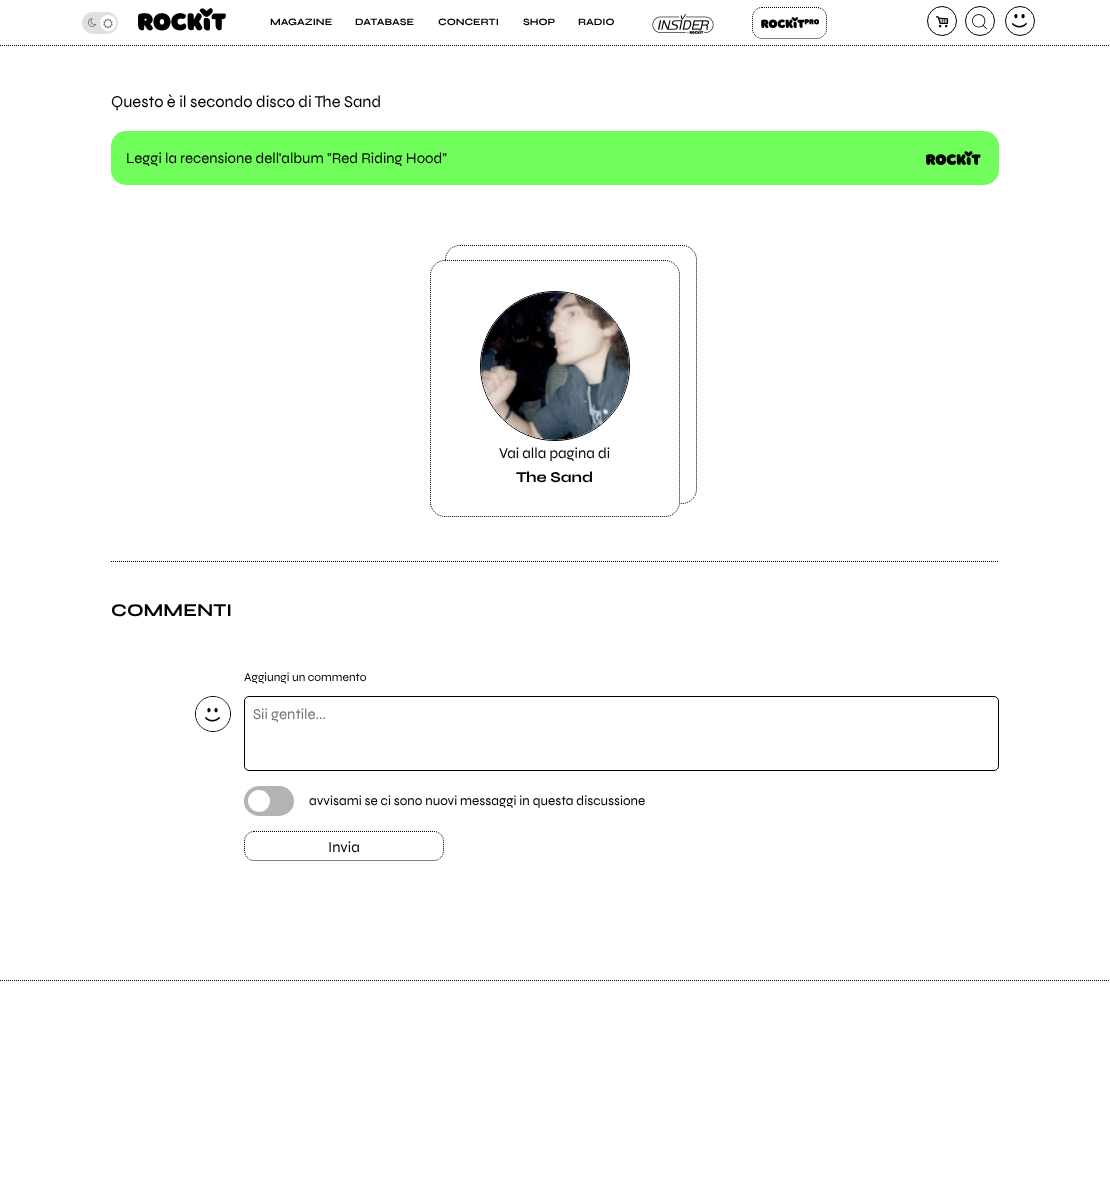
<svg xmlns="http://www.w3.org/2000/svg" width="1110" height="1192">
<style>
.a{font:bold 9.75px Syne;fill:#000}
.b{font:16.5px Syne;fill:#000}
.c{font:15px Syne;fill:#000}
.d{font:bold 15px Syne;fill:#000}
.e{font:bold 18px Syne;fill:#000}
.f{font:12px Syne;fill:#000}
.g{font:15px Syne;fill:#757575}
.h{font:13.5px Syne;fill:#000}
</style>
<rect width="100%" height="100%" fill="#fff"/>
<path fill="none" stroke="#000" stroke-dasharray="1 1" d="M0 45.5h1110"/>
<image href="1.png" x="138" y="8" width="88" height="23"/>
<circle fill="none" stroke="#000" cx="942" cy="21" r="14.5"/>
<image href="2.png" x="936" y="16" width="13" height="12"/>
<circle fill="none" stroke="#000" cx="980" cy="21" r="14.5"/>
<image href="3.png" x="972" y="14" width="15" height="16"/>
<image href="4.png" x="1012" y="14" width="15" height="14"/>
<circle fill="none" stroke="#000" cx="1020" cy="21" r="14.5"/>
<rect fill="#e0e0e0" x="82" y="12" width="36" height="22" rx="11"/>
<circle fill="#fff" cx="108" cy="23" r="8"/>
<image href="5.png" x="88" y="18" width="9" height="9"/>
<image href="6.png" x="103" y="18" width="10" height="11"/>
<image href="7.png" x="652" y="14" width="62" height="20"/>
<image href="8.png" x="761" y="17" width="58" height="11"/>
<path fill="none" stroke="#000" stroke-dasharray="1 1" d="M762 7.5h55c5 0 9.5 4.5 9.5 9.5v12c0 5-4.5 9.5-9.5 9.5h-55c-5 0-9.5-4.5-9.5-9.5v-12c0-5 4.5-9.5 9.5-9.5z"/>
<rect fill="#71fd5c" x="111" y="131" width="888" height="54" rx="15"/>
<image href="9.png" x="926" y="151" width="55" height="14"/>
<path fill="none" stroke="#000" stroke-dasharray="1 1" d="M460 245.5h222c8 0 14.5 6.5 14.5 14.5v229c0 8-6.5 14.5-14.5 14.5h-222c-8 0-14.5-6.5-14.5-14.5v-229c0-8 6.5-14.5 14.5-14.5z"/>
<rect fill="#fff" x="430" y="260" width="250" height="257" rx="15"/>
<path fill="none" stroke="#000" stroke-dasharray="1 1" d="M445 260.5h220c8 0 14.5 6.5 14.5 14.5v227c0 8-6.5 14.5-14.5 14.5h-220c-8 0-14.5-6.5-14.5-14.5v-227c0-8 6.5-14.5 14.5-14.5z"/>
<circle fill="none" stroke="#000" cx="555" cy="366" r="74.5"/>
<circle fill="#fff" cx="555" cy="366" r="74"/>
<image href="10.png" x="481" y="292" width="148" height="148"/>
<path fill="none" stroke="#000" stroke-dasharray="1 1" d="M111 561.5h888"/>
<circle fill="none" stroke="#000" cx="213" cy="714" r="17.5"/>
<circle fill="#fff" cx="213" cy="714" r="17"/>
<image href="4.png" x="205" y="708" width="15" height="14"/>
<rect fill="none" stroke="#000" x="244.5" y="696.5" width="754" height="74" rx="4.5"/>
<rect fill="#b3b3b3" x="244" y="786" width="50" height="30" rx="15"/>
<circle fill="#fff" cx="259" cy="801" r="11"/>
<path fill="none" stroke="#000" stroke-dasharray="1 1" d="M254 831.5h180c5 0 9.5 4.5 9.5 9.5v10c0 5-4.5 9.5-9.5 9.5h-180c-5 0-9.5-4.5-9.5-9.5v-10c0-5 4.5-9.5 9.5-9.5z"/>
<path fill="none" stroke="#000" stroke-dasharray="1 1" d="M0 980.5h1110"/>
<text class="a" x="270" y="25">MAGAZINE</text>
<text class="a" x="355" y="25">DATABASE</text>
<text class="a" x="438" y="25">CONCERTI</text>
<text class="a" x="523" y="25">SHOP</text>
<text class="a" x="578" y="25">RADIO</text>
<text class="b" x="111" y="107">Questo è il secondo disco di The Sand</text>
<text class="c" x="126" y="163">Leggi la recensione dell'album "Red Riding Hood"</text>
<text class="c" x="499" y="458">Vai alla pagina di</text>
<text class="d" x="516" y="482">The Sand</text>
<text class="e" x="111" y="616">COMMENTI</text>
<text class="f" x="244" y="681">Aggiungi un commento</text>
<text class="g" x="253" y="719">Sii gentile...</text>
<text class="h" x="309" y="805">avvisami se ci sono nuovi messaggi in questa discussione</text>
<text class="c" x="328" y="852">Invia</text>
</svg>
